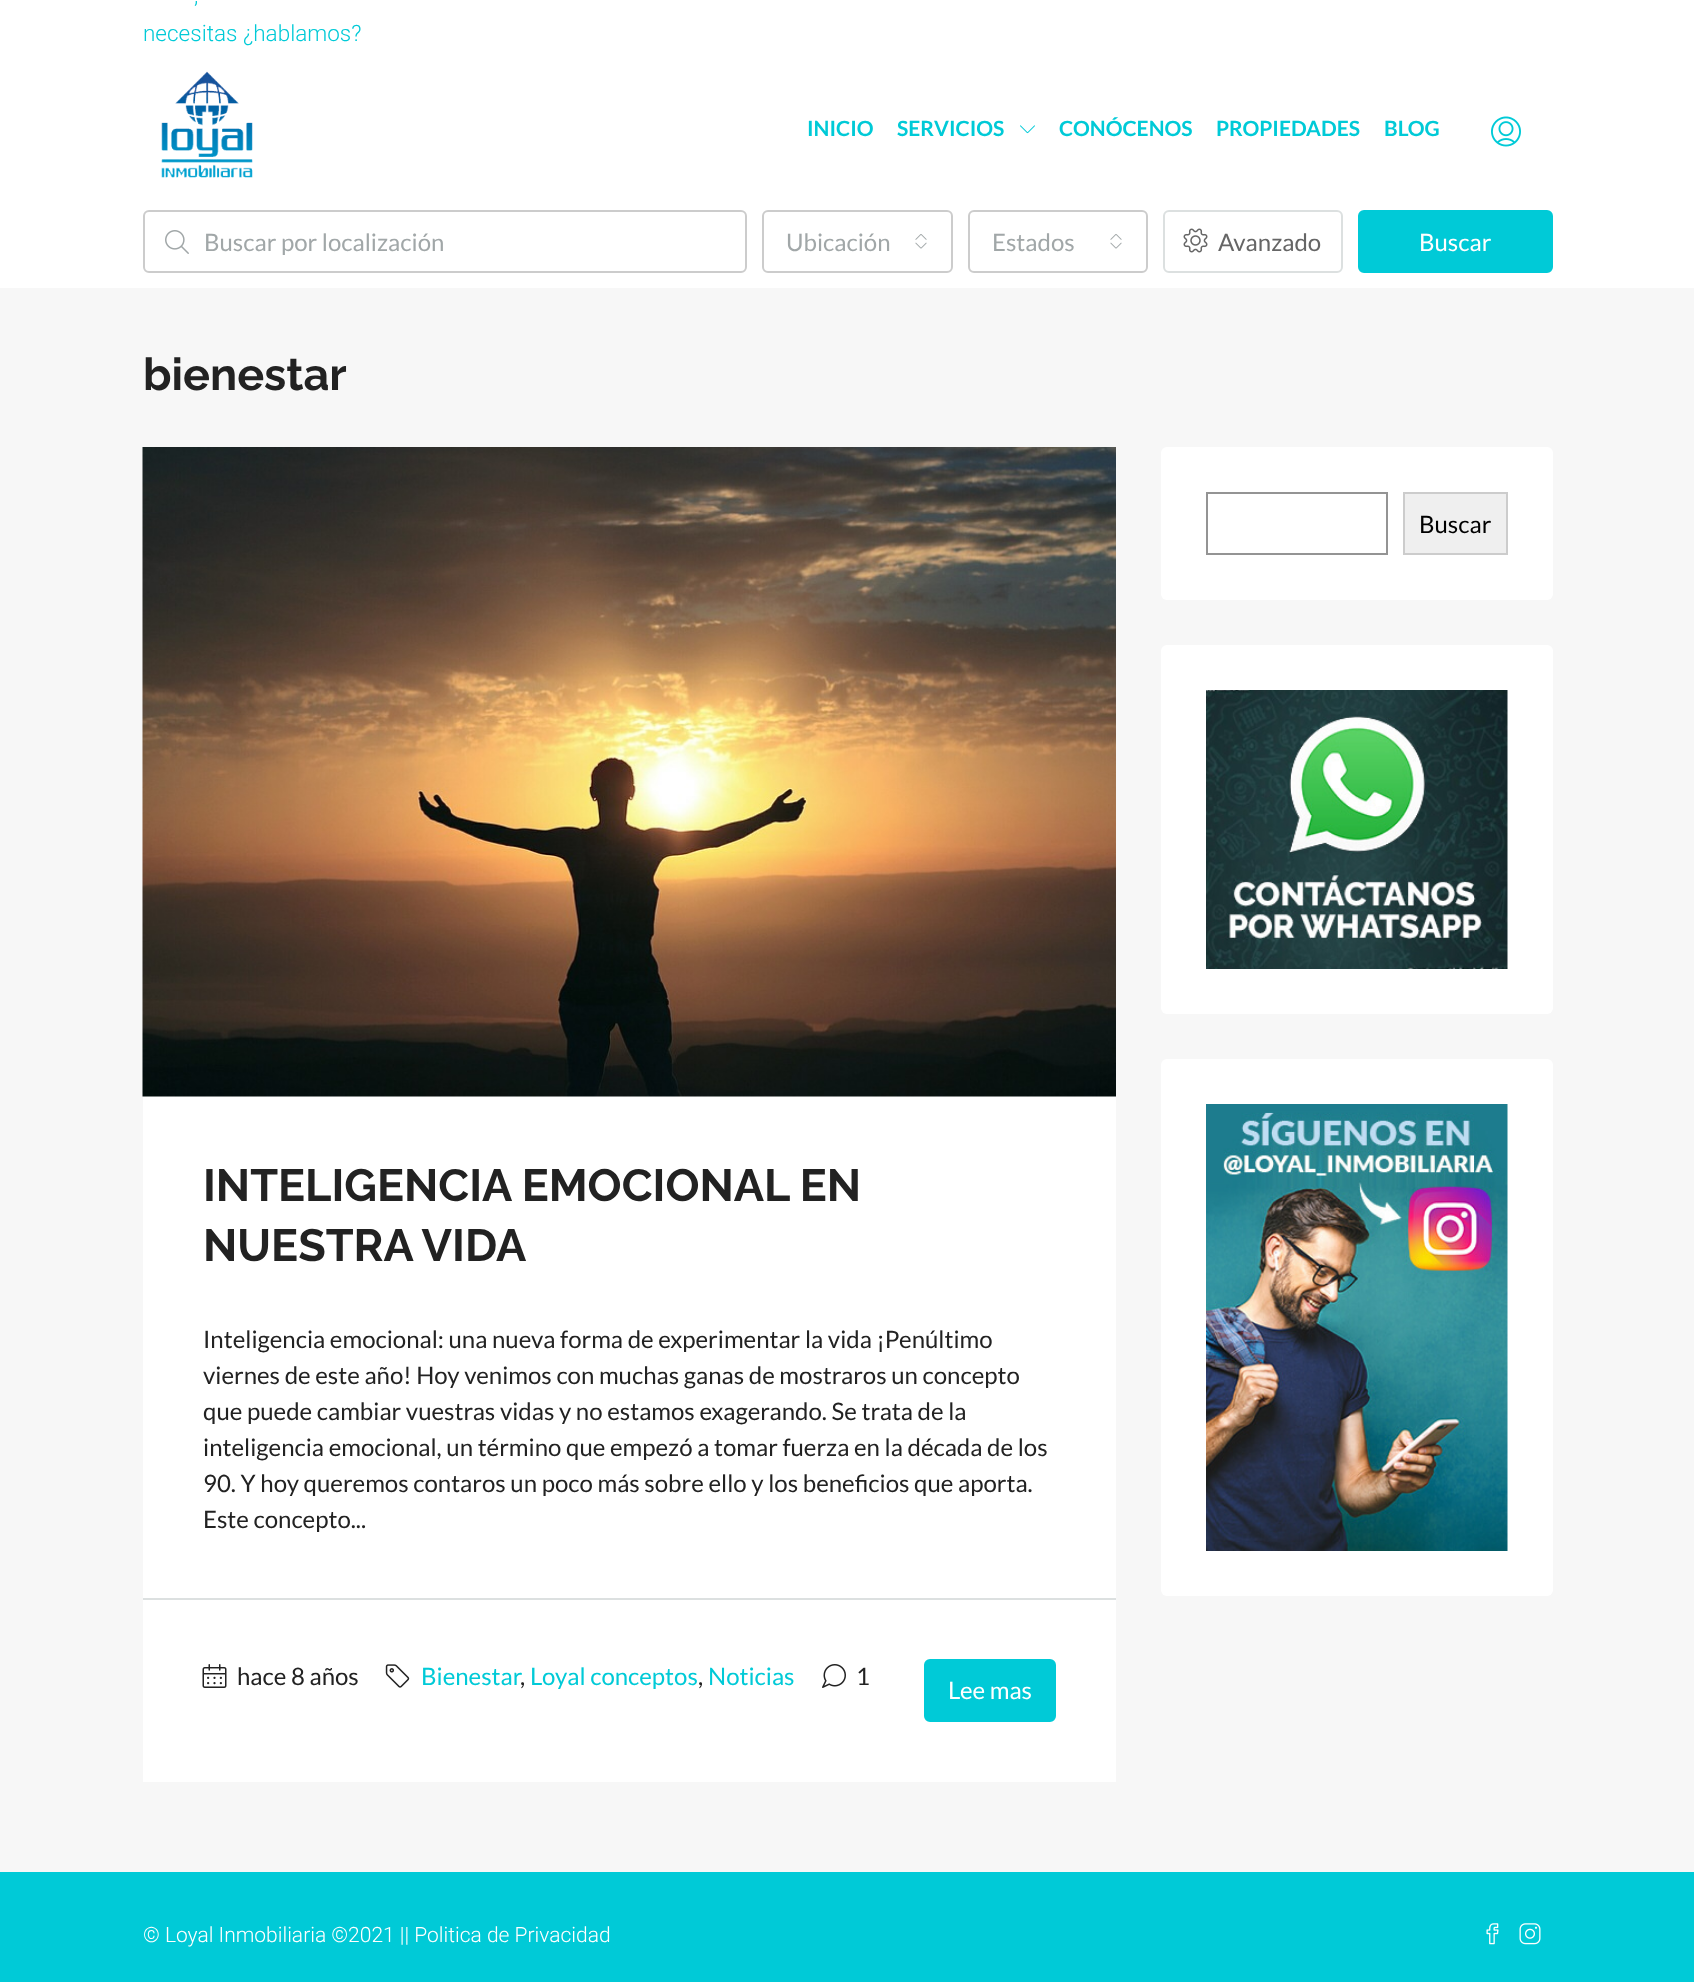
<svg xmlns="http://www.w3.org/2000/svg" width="1694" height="1982">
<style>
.a{font:300 22.5px Roboto;fill:#00cad7}
.b{font:bold 21px Lato;fill:#00cad7}
.c{font:24px Lato;fill:#a1a7a8}
.d{font:24px Lato;fill:#666}
.e{font:24px Lato;fill:#fff}
.f{font:100 45px Raleway;fill:#222}
.g{font:24px Lato;fill:#000}
.h{font:24px Lato;fill:#222}
.i{font:24px Lato;fill:#00cad7}
.j{font:300 21px Roboto;fill:#fff}
</style>
<rect width="100%" height="100%" fill="#f7f7f7"/>
<path fill="#fff" d="M0 0h1694v195H0z"/>
<image href="1.png" x="161" y="71" width="92" height="107"/>
<image href="2.png" x="1020" y="125" width="15" height="9"/>
<image href="3.png" x="1491" y="116" width="30" height="31"/>
<path fill="#fff" d="M0 195h1694v93H0z"/>
<rect fill="none" stroke="#ccc" stroke-width="2" x="144" y="211" width="602" height="61" rx="5"/>
<image href="4.png" x="165" y="230" width="24" height="24"/>
<rect fill="none" stroke="#ccc" stroke-width="2" x="763" y="211" width="189" height="61" rx="5"/>
<image href="5.png" x="915" y="234" width="12" height="15"/>
<rect fill="none" stroke="#ccc" stroke-width="2" x="969" y="211" width="178" height="61" rx="5"/>
<image href="5.png" x="1110" y="234" width="12" height="15"/>
<rect fill="none" stroke="#dce0e0" stroke-width="2" x="1164" y="211" width="178" height="61" rx="5"/>
<image href="6.png" x="1183" y="228" width="25" height="25"/>
<rect fill="#00cad7" stroke="#00cad7" stroke-width="2" x="1359" y="211" width="193" height="61" rx="5"/>
<rect fill="#fff" x="1161" y="447" width="392" height="153" rx="6"/>
<path fill="none" stroke="#949494" stroke-width="2" d="M1207 493h180v61H1207z"/>
<path fill="#efefef" stroke="#ccc" stroke-width="2" d="M1404 493h103v61H1404z"/>
<rect fill="#fff" x="1161" y="645" width="392" height="369" rx="6"/>
<image href="7.png" x="1206" y="690" width="302" height="279"/>
<rect fill="#fff" x="1161" y="1059" width="392" height="537" rx="6"/>
<image href="8.png" x="1206" y="1104" width="302" height="447"/>
<path fill="#fff" d="M143 1096h973v686H143z"/>
<image href="9.png" x="142" y="447" width="974" height="650"/>
<path fill="#dce0e0" d="M143 1598h973v2H143z"/>
<image href="10.png" x="202" y="1664" width="25" height="24"/>
<image href="11.png" x="385" y="1664" width="25" height="24"/>
<image href="12.png" x="822" y="1664" width="24" height="24"/>
<rect fill="#00cad7" stroke="#00cad7" stroke-width="2" x="925" y="1660" width="130" height="61" rx="5"/>
<path fill="#00cad7" d="M0 1872h1694v110H0z"/>
<image href="13.png" x="1486" y="1923" width="13" height="22"/>
<image href="14.png" x="1519" y="1923" width="22" height="22"/>
<text class="a" x="194" y="3">,</text>
<text class="a" x="143" y="41">necesitas ¿hablamos?</text>
<text class="b" x="807" y="136">INICIO</text>
<text class="b" x="897" y="136">SERVICIOS</text>
<text class="b" x="1059" y="136">CONÓCENOS</text>
<text class="b" x="1216" y="136">PROPIEDADES</text>
<text class="b" x="1384" y="136">BLOG</text>
<text class="c" x="204" y="251">Buscar por localización</text>
<text class="c" x="786" y="251">Ubicación</text>
<text class="c" x="992" y="251">Estados</text>
<text class="d" x="1218" y="251">Avanzado</text>
<text class="e" x="1419" y="251">Buscar</text>
<text class="f" x="143" y="390">bienestar</text>
<text class="g" x="1419" y="533">Buscar</text>
<text class="f" x="203" y="1201">INTELIGENCIA EMOCIONAL EN</text>
<text class="f" x="203" y="1261">NUESTRA VIDA</text>
<text class="h" x="203" y="1348">Inteligencia emocional: una nueva forma de experimentar la vida ¡Penúltimo</text>
<text class="h" x="203" y="1384">viernes de este año! Hoy venimos con muchas ganas de mostraros un concepto</text>
<text class="h" x="203" y="1420">que puede cambiar vuestras vidas y no estamos exagerando. Se trata de la</text>
<text class="h" x="203" y="1456">inteligencia emocional, un término que empezó a tomar fuerza en la década de los</text>
<text class="h" x="203" y="1492">90. Y hoy queremos contaros un poco más sobre ello y los beneficios que aporta.</text>
<text class="h" x="203" y="1528">Este concepto...</text>
<text class="h" x="237" y="1685">hace 8 años</text>
<text class="i" x="421" y="1685">Bienestar</text>
<text class="h" x="520" y="1685">,</text>
<text class="i" x="530" y="1685">Loyal conceptos</text>
<text class="h" x="698" y="1685">,</text>
<text class="i" x="708" y="1685">Noticias</text>
<text class="h" x="856" y="1685">1</text>
<text class="e" x="948" y="1699">Lee mas</text>
<text class="j" x="143" y="1942">© Loyal Inmobiliaria ©2021 || Politica de Privacidad</text>
</svg>
